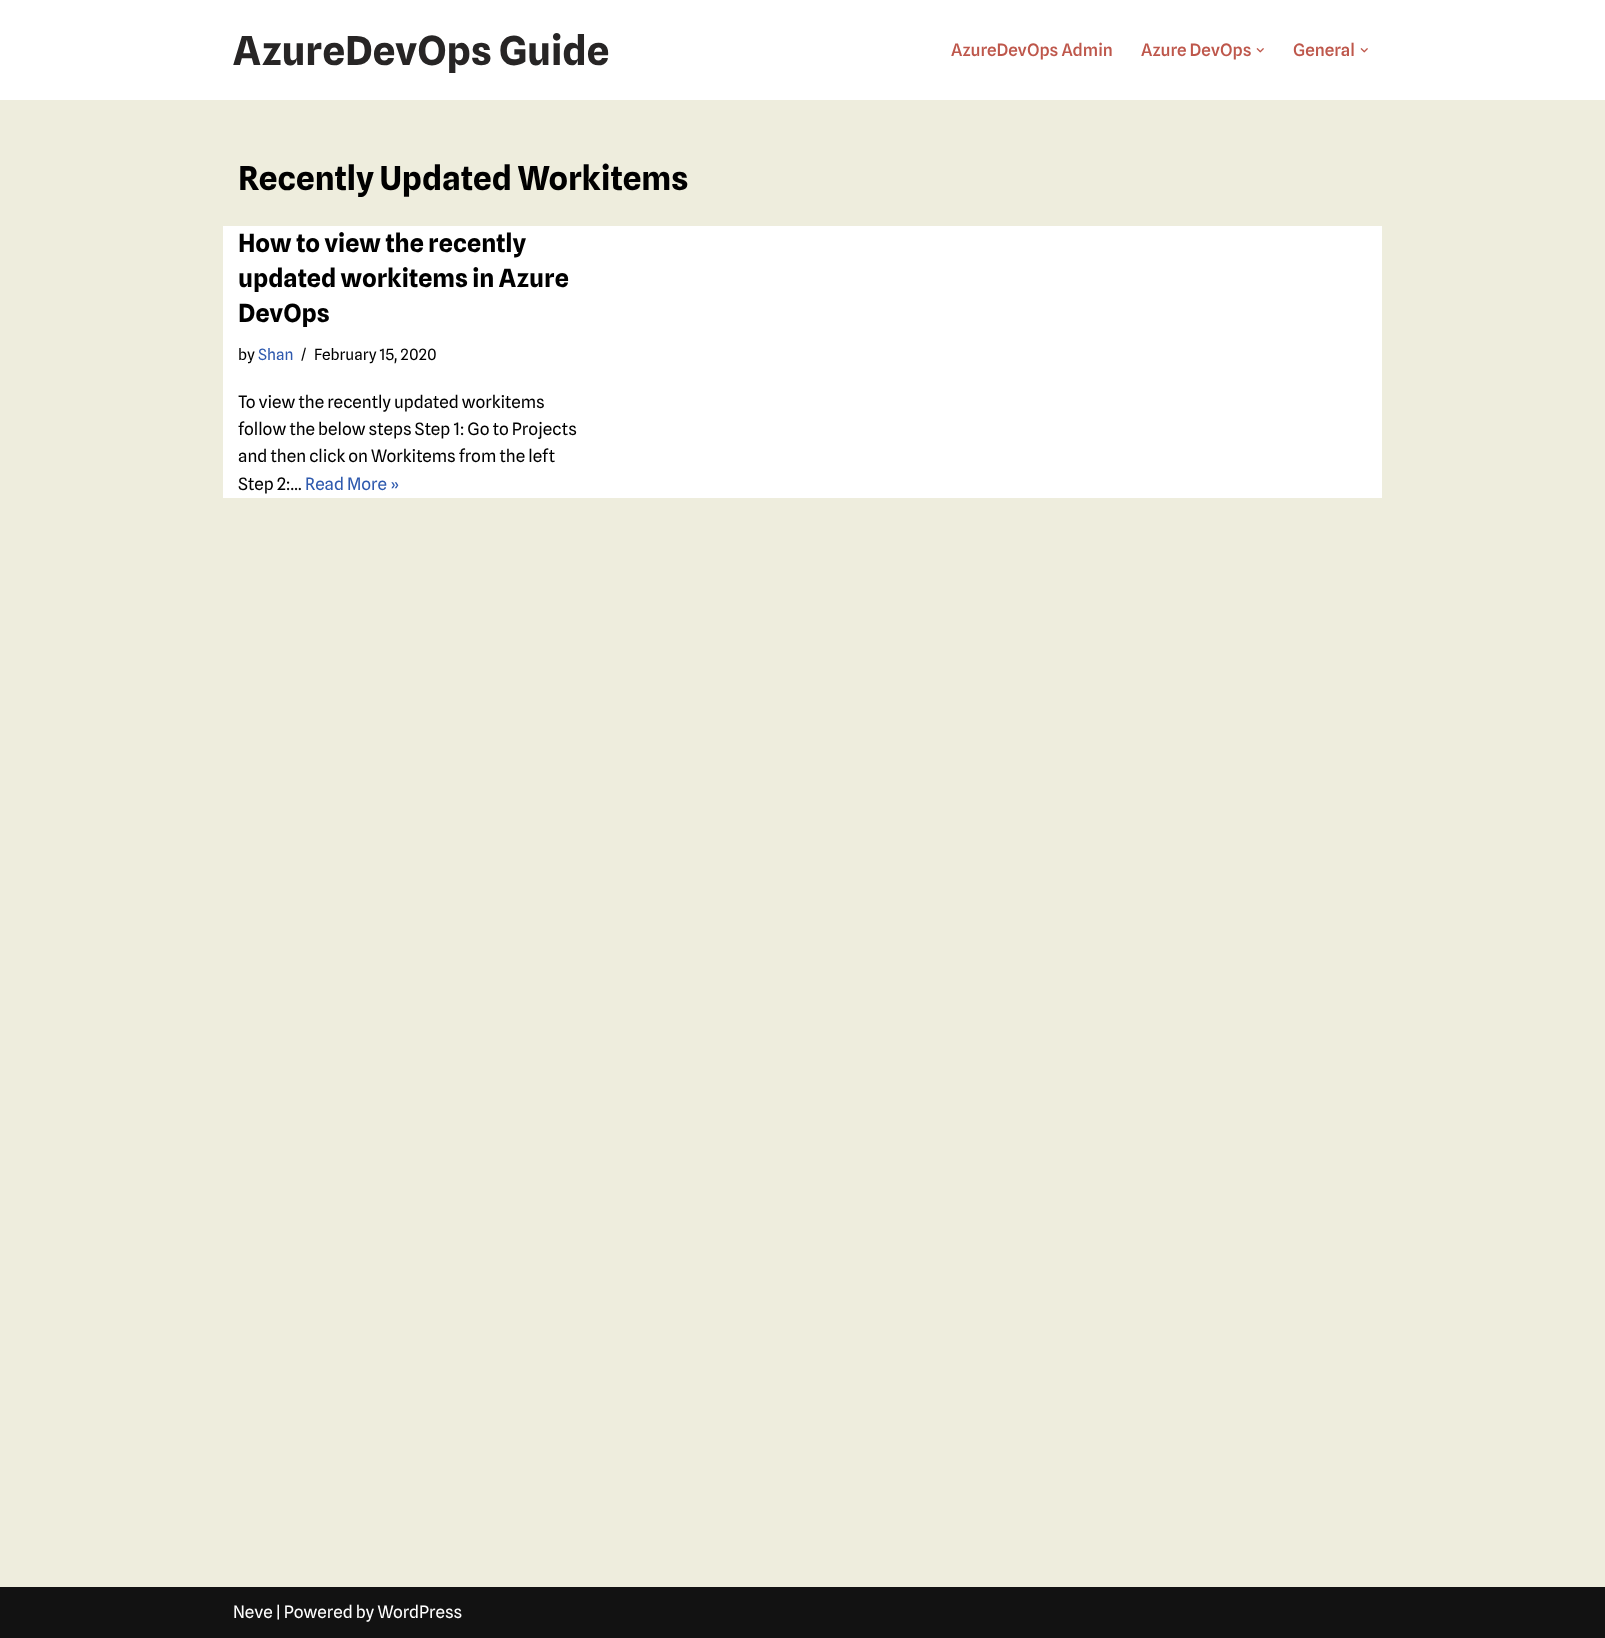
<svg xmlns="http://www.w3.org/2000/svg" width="1605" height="1638">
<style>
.a{font:bold 40px Spline Sans;fill:#272525}
.b{font:500 17.1px Spline Sans;fill:#be574b}
.c{font:bold 33px Spline Sans;fill:#000}
.d{font:bold 25px Spline Sans;fill:#000}
.e{font:15.5px Spline Sans;fill:#000}
.f{font:15.5px Spline Sans;fill:#2f5aae}
.g{font:17.1px Spline Sans;fill:#000}
.h{font:17.1px Spline Sans;fill:#2f5aae}
.i{font:17.1px Spline Sans;fill:#fff}
</style>
<rect width="100%" height="100%" fill="#eeeddd"/>
<path fill="#fff" d="M0 0h1605v100H0z"/>
<image href="1.png" x="1256" y="48" width="8" height="5"/>
<image href="1.png" x="1360" y="48" width="8" height="5"/>
<path fill="#fff" d="M223 226h1159v272H223z"/>
<path fill="#121212" d="M0 1587h1605v51H0z"/>
<text class="a" x="233" y="65">AzureDevOps Guide</text>
<text class="b" x="951" y="56">AzureDevOps Admin</text>
<text class="b" x="1141" y="56">Azure DevOps</text>
<text class="b" x="1293" y="56">General</text>
<text class="c" x="238" y="190">Recently Updated Workitems</text>
<text class="d" x="238" y="252">How to view the recently</text>
<text class="d" x="238" y="287">updated workitems in Azure</text>
<text class="d" x="238" y="322">DevOps</text>
<text class="e" x="238" y="360">by</text>
<text class="f" x="258" y="360">Shan</text>
<text class="e" x="301" y="360">/</text>
<text class="e" x="314" y="360">February 15, 2020</text>
<text class="g" x="238" y="408">To view the recently updated workitems</text>
<text class="g" x="238" y="435">follow the below steps Step 1: Go to Projects</text>
<text class="g" x="238" y="462">and then click on Workitems from the left</text>
<text class="g" x="238" y="490">Step 2:…</text>
<text class="h" x="305" y="490">Read More »</text>
<text class="i" x="233" y="1618">Neve | Powered by WordPress</text>
</svg>
